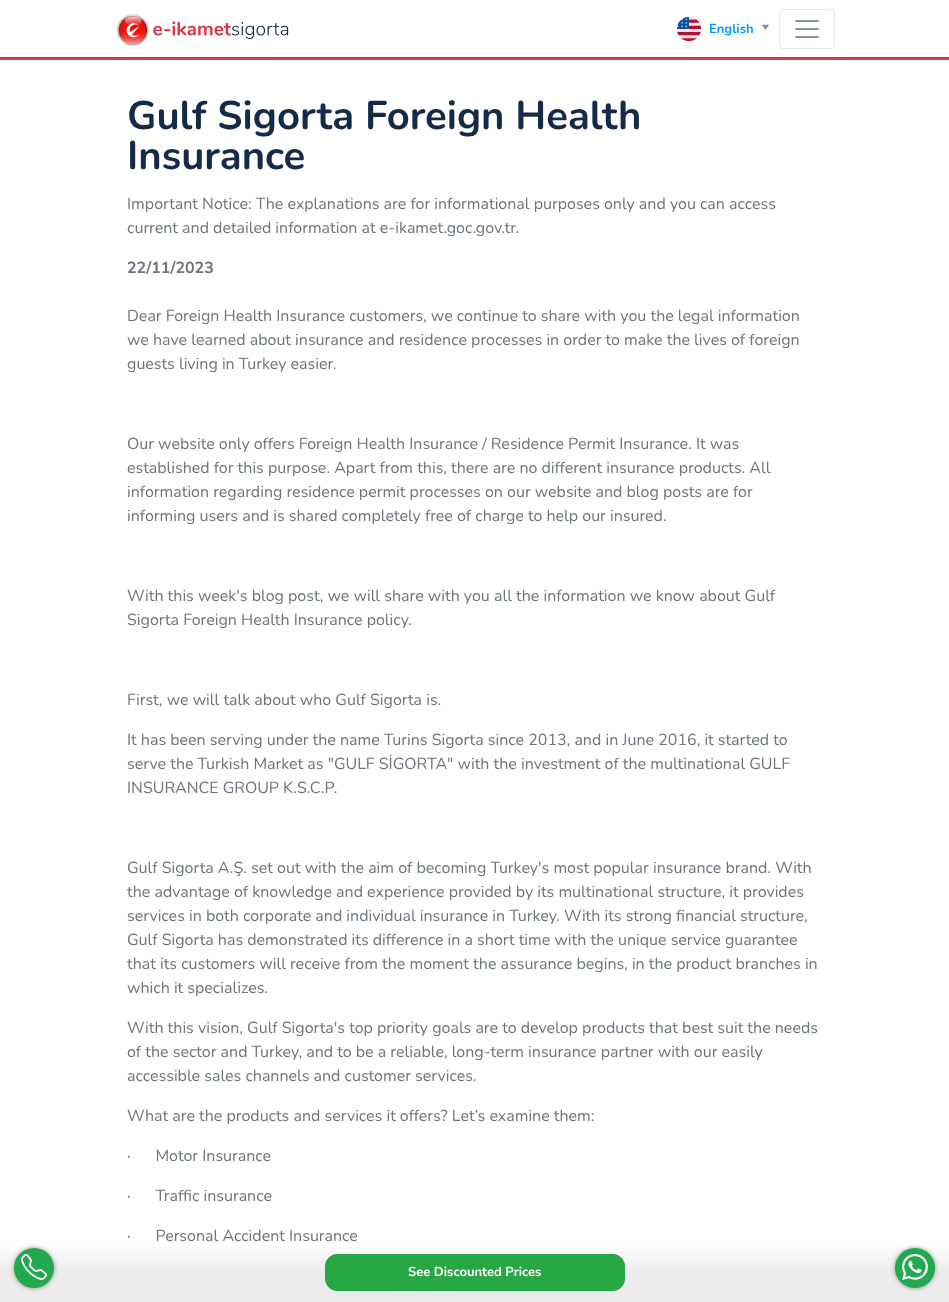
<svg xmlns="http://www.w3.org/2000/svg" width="949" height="1302">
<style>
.a{font:bold 13px Nunito;fill:#09f}
.b{font:bold 40px Nunito;fill:#152a49}
.c{font:16px Nunito;fill:#6c757d}
.d{font:bold 16px Nunito;fill:#6c757d}
.e{font:bold 13px Nunito;fill:#fff}
</style>
<defs>
<linearGradient id="g1" gradientUnits="userSpaceOnUse" x1="475" y1="1302" x2="475" y2="1243"><stop offset="0.5" stop-color="#ececec"/><stop offset="1" stop-color="#ececec" stop-opacity="0"/></linearGradient>
</defs>
<rect width="100%" height="100%" fill="#dc3545"/>
<path fill="#fff" d="M0 0h949v57H0z"/>
<image href="1.png" x="117" y="14" width="172" height="32"/>
<image href="2.png" x="677" y="17" width="24" height="24"/>
<image href="3.png" x="762" y="24" width="7" height="6"/>
<rect fill="none" stroke="#e8eaed" x="779.5" y="9.5" width="55" height="39" rx="3.5"/>
<image href="4.png" x="795" y="20" width="24" height="18"/>
<path fill="#fff" d="M0 60h949v1212H0z"/>
<path fill="url(#g1)" d="M0 1247h949v55H0z"/>
<rect fill="#00000066" filter="blur(2.5px)" x="14" y="1248" width="40" height="40" rx="20"/>
<circle fill="#22a84f" cx="34" cy="1268" r="20"/>
<image href="5.png" x="21" y="1254" width="26" height="26"/>
<rect fill="#28a745" stroke="#28a745" x="325.5" y="1254.5" width="299" height="36" rx="11.5"/>
<rect fill="#00000066" filter="blur(2.5px)" x="895" y="1248" width="40" height="40" rx="20"/>
<circle fill="#22a84f" cx="915" cy="1268" r="20"/>
<image href="6.png" x="902" y="1254" width="26" height="26"/>
<text class="a" x="709" y="33">English</text>
<text class="b" x="127" y="129">Gulf Sigorta Foreign Health</text>
<text class="b" x="127" y="169">Insurance</text>
<text class="c" x="127" y="209">Important Notice: The explanations are for informational purposes only and you can access</text>
<text class="c" x="127" y="233">current and detailed information at e-ikamet.goc.gov.tr.</text>
<text class="d" x="127" y="273">22/11/2023</text>
<text class="c" x="127" y="321">Dear Foreign Health Insurance customers, we continue to share with you the legal information</text>
<text class="c" x="127" y="345">we have learned about insurance and residence processes in order to make the lives of foreign</text>
<text class="c" x="127" y="369">guests living in Turkey easier.</text>
<text class="c" x="127" y="449">Our website only offers Foreign Health Insurance / Residence Permit Insurance. It was</text>
<text class="c" x="127" y="473">established for this purpose. Apart from this, there are no different insurance products. All</text>
<text class="c" x="127" y="497">information regarding residence permit processes on our website and blog posts are for</text>
<text class="c" x="127" y="521">informing users and is shared completely free of charge to help our insured.</text>
<text class="c" x="127" y="601">With this week's blog post, we will share with you all the information we know about Gulf</text>
<text class="c" x="127" y="625">Sigorta Foreign Health Insurance policy.</text>
<text class="c" x="127" y="705">First, we will talk about who Gulf Sigorta is.</text>
<text class="c" x="127" y="745">It has been serving under the name Turins Sigorta since 2013, and in June 2016, it started to</text>
<text class="c" x="127" y="769">serve the Turkish Market as "GULF SİGORTA" with the investment of the multinational GULF</text>
<text class="c" x="127" y="793">INSURANCE GROUP K.S.C.P.</text>
<text class="c" x="127" y="873">Gulf Sigorta A.Ş. set out with the aim of becoming Turkey's most popular insurance brand. With</text>
<text class="c" x="127" y="897">the advantage of knowledge and experience provided by its multinational structure, it provides</text>
<text class="c" x="127" y="921">services in both corporate and individual insurance in Turkey. With its strong financial structure,</text>
<text class="c" x="127" y="945">Gulf Sigorta has demonstrated its difference in a short time with the unique service guarantee</text>
<text class="c" x="127" y="969">that its customers will receive from the moment the assurance begins, in the product branches in</text>
<text class="c" x="127" y="993">which it specializes.</text>
<text class="c" x="127" y="1033">With this vision, Gulf Sigorta's top priority goals are to develop products that best suit the needs</text>
<text class="c" x="127" y="1057">of the sector and Turkey, and to be a reliable, long-term insurance partner with our easily</text>
<text class="c" x="127" y="1081">accessible sales channels and customer services.</text>
<text class="c" x="127" y="1121">What are the products and services it offers? Let’s examine them:</text>
<text class="c" xml:space="preserve" x="127" y="1161">·      Motor Insurance</text>
<text class="c" xml:space="preserve" x="127" y="1201">·      Traffic insurance</text>
<text class="c" xml:space="preserve" x="127" y="1241">·      Personal Accident Insurance</text>
<text class="e" x="408" y="1276">See Discounted Prices</text>
</svg>
